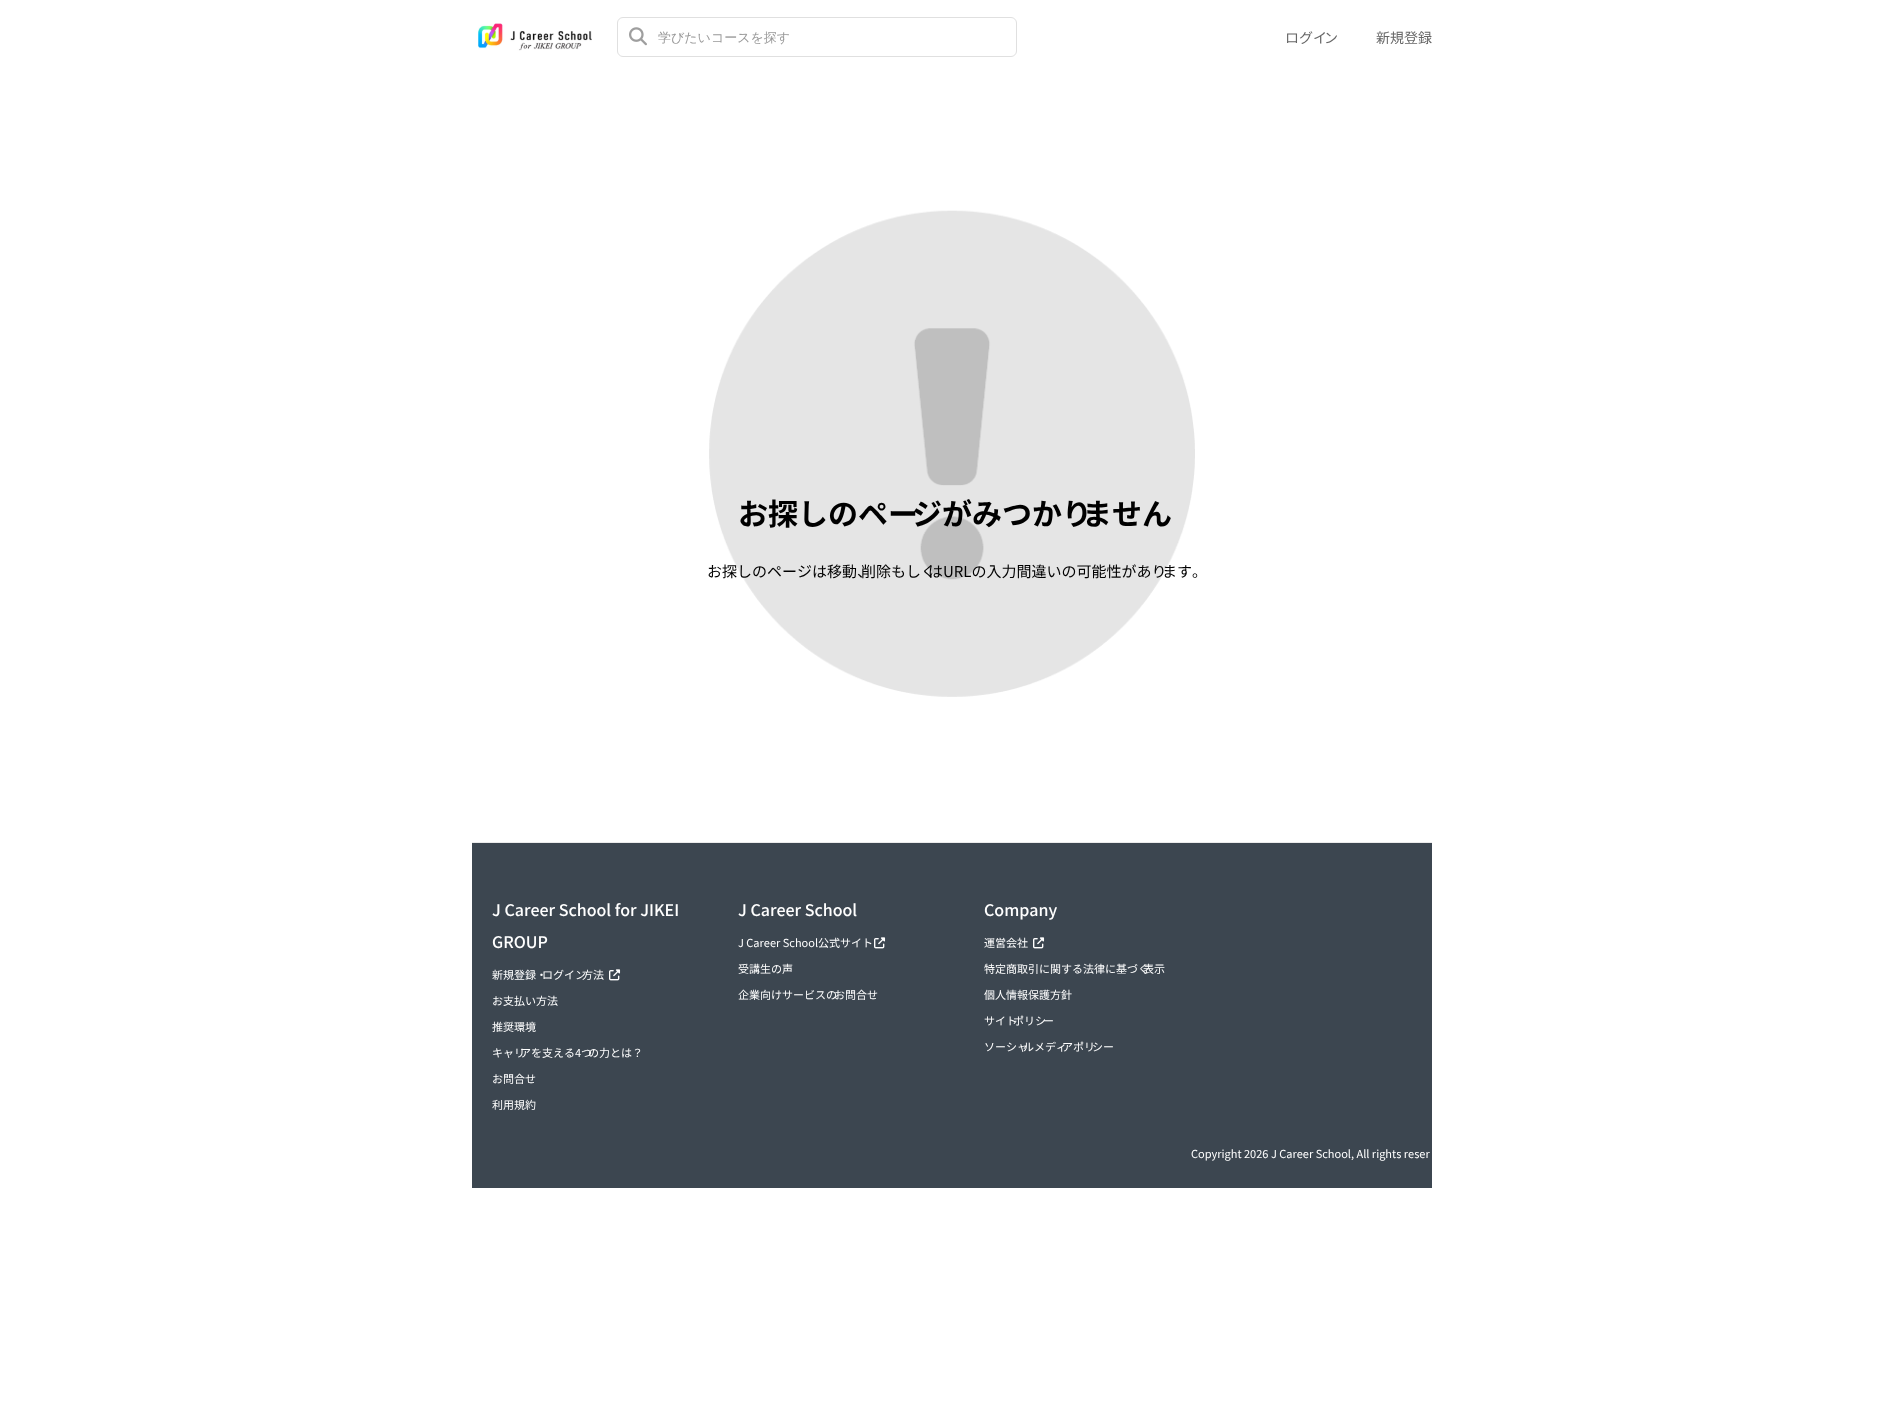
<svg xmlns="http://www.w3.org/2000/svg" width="1904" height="1405">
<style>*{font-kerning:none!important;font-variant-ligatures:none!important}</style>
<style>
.a{font:500 13px WenQuanYi Zen Hei;fill:#999}
.b{font:14px Noto Sans JP;fill:#666}
.c{font:bold 30px Noto Sans JP;fill:#000}
.d{font:15px Noto Sans JP;fill:#000}
.e{font:500 16px Noto Sans JP;fill:#fff}
.f{font:11px Noto Sans JP;fill:#fff}
</style>
<rect width="100%" height="100%" fill="#fff"/>
<image href="1.png" x="478" y="23" width="114" height="28"/>
<rect fill="none" stroke="#e0e0e0" x="617.5" y="17.5" width="399" height="39" rx="5.5"/>
<image href="2.png" x="629" y="27" width="18" height="19"/>
<image href="3.png" x="709" y="210" width="486" height="487"/>
<path fill="#3c4650" d="M472 843h960v345H472z"/>
<path fill="#ebebeb" d="M472 842h960v1H472z"/>
<image href="4.png" x="609" y="969" width="12" height="12"/>
<image href="4.png" x="874" y="937" width="12" height="12"/>
<image href="4.png" x="1033" y="937" width="12" height="12"/>
<text class="a" x="658" y="42">学びたいコースを探す</text>
<text class="b" x="1285" y="43">ログイ</text>
<text class="b" x="1324" y="43">ン</text>
<text class="b" x="1376" y="43">新規登録</text>
<text class="c" x="738" y="525">お探しのペー</text>
<text class="c" x="912" y="525">ジがみつかり</text>
<text class="c" x="1082" y="525">ません</text>
<text class="d" x="707" y="577">お探しのページは移動、</text>
<text class="d" x="861" y="577">削除もしく</text>
<text class="d" x="928" y="577">はURLの入力間違いの可能性があり</text>
<text class="d" x="1162" y="577">ます。</text>
<text class="e" x="492" y="916">J Career School for JIKEI</text>
<text class="e" x="492" y="948">GROUP</text>
<text class="f" x="492" y="979">新規登録・</text>
<text class="f" x="542" y="979">ログイン</text>
<text class="f" x="582" y="979">方法</text>
<text class="f" x="492" y="1005">お支払い方法</text>
<text class="f" x="492" y="1031">推奨環境</text>
<text class="f" x="492" y="1057">キャリ</text>
<text class="f" x="520" y="1057">アを支える4つ</text>
<text class="f" x="588" y="1057">の力とは？</text>
<text class="f" x="492" y="1083">お問合せ</text>
<text class="f" x="492" y="1109">利用規約</text>
<text class="e" x="738" y="916">J Career School</text>
<text class="f" x="738" y="947">J Career School公式サイト</text>
<text class="f" x="738" y="973">受講生の声</text>
<text class="f" x="738" y="999">企業向けサービスの</text>
<text class="f" x="834" y="999">お問合せ</text>
<text class="e" x="984" y="916">Company</text>
<text class="f" x="984" y="947">運営会社</text>
<text class="f" x="984" y="973">特定商取引に関する法律に基づく</text>
<text class="f" x="1143" y="973">表示</text>
<text class="f" x="984" y="999">個人情報保護方針</text>
<text class="f" x="984" y="1025">サイト</text>
<text class="f" x="1013" y="1025">ポリシ</text>
<text class="f" x="1043" y="1025">ー</text>
<text class="f" x="984" y="1051">ソーシャ</text>
<text class="f" x="1023" y="1051">ルメディ</text>
<text class="f" x="1062" y="1051">アポリ</text>
<text class="f" x="1092" y="1051">シー</text>
<text class="f" x="1191" y="1158">Copyright 2026 J Career School, All rights reser</text>
</svg>
